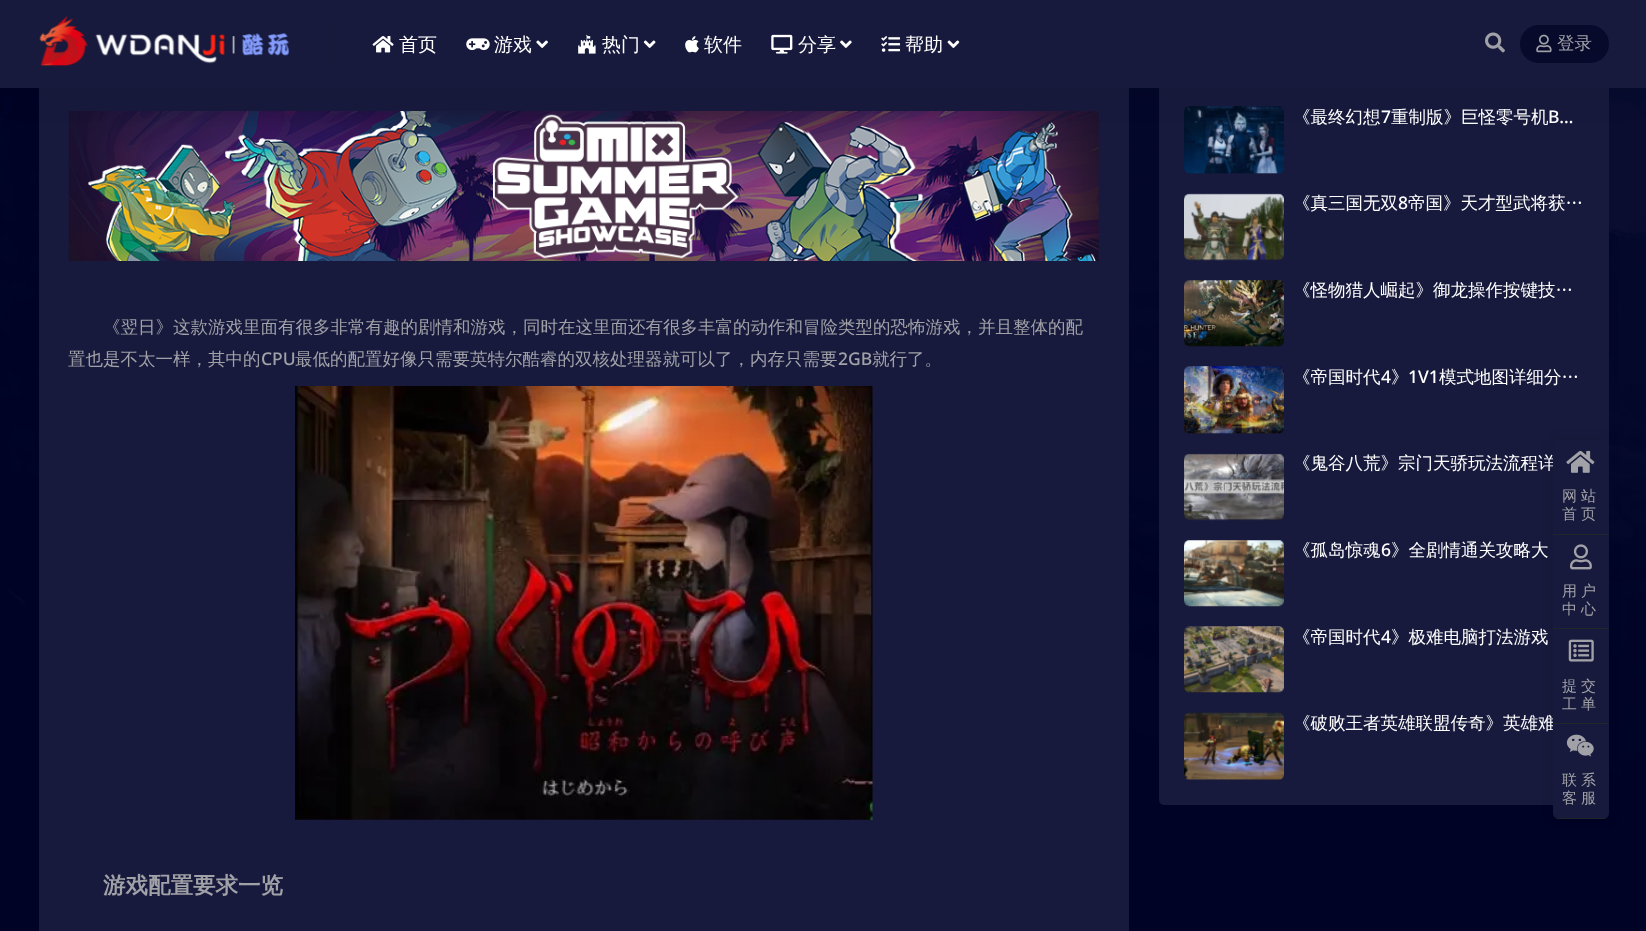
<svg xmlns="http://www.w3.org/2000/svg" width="1646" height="931">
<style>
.a{font:500 19px WenQuanYi Zen Hei;fill:#fff}
.b{font:500 17.5px WenQuanYi Zen Hei;fill:#a1a1a8}
.c{font:500 17.5px Noto Sans;fill:#a1a1a8}
.d{font:bold 22.5px WenQuanYi Zen Hei;fill:#a1a1a8}
.e{font:500 17.5px WenQuanYi Zen Hei;fill:#fff}
.f{font:500 17.5px Noto Sans;fill:#fff}
.g{font:500 15px WenQuanYi Zen Hei;letter-spacing:4px;fill:#a1a1a8}
</style>
<defs>
<clipPath id="clip1"><rect x="1553" y="440" width="56" height="379" rx="6"/></clipPath>
</defs>
<rect width="100%" height="100%" fill="#fff"/>
<image href="1.png" x="0" y="88" width="1646" height="843"/>
<path fill="#171a3c" d="M39 88h1090v843H39z"/>
<image href="15.png" x="68" y="111" width="1031" height="150"/>
<rect fill="#171a3c" x="1159" y="38" width="450" height="767" rx="5"/>
<image href="17.png" x="1184" y="106" width="100" height="68"/>
<path fill="#00000012" filter="blur(19px)" d="M0 0h1646v88H0z"/>
<path fill="#171a3c" d="M0 0h1646v88H0z"/>
<image href="2.png" x="39" y="16" width="251" height="51"/>
<path fill="#171a39" d="M334 23h1v43H334z"/>
<image href="3.png" x="372" y="36" width="22" height="17"/>
<image href="4.png" x="466" y="38" width="24" height="13"/>
<image href="5.png" x="536" y="40" width="12" height="8"/>
<image href="6.png" x="578" y="34" width="18" height="20"/>
<image href="7.png" x="643" y="40" width="13" height="8"/>
<image href="8.png" x="685" y="36" width="14" height="17"/>
<image href="9.png" x="771" y="34" width="22" height="20"/>
<image href="10.png" x="840" y="40" width="12" height="8"/>
<image href="11.png" x="881" y="36" width="20" height="16"/>
<image href="12.png" x="947" y="40" width="13" height="8"/>
<image href="13.png" x="1485" y="32" width="20" height="21"/>
<rect fill="#070a2b" x="1520" y="25" width="89" height="38" rx="19"/>
<image href="14.png" x="1536" y="34" width="16" height="19"/>
<image href="16.png" x="295" y="386" width="578" height="434"/>
<image href="18.png" x="1184" y="193" width="100" height="68"/>
<image href="19.png" x="1184" y="280" width="100" height="67"/>
<image href="20.png" x="1184" y="366" width="100" height="68"/>
<image href="21.png" x="1184" y="453" width="100" height="68"/>
<image href="22.png" x="1184" y="540" width="100" height="67"/>
<image href="23.png" x="1184" y="626" width="100" height="67"/>
<image href="24.png" x="1184" y="712" width="100" height="68"/>
<rect fill="#0000001a" filter="blur(6px)" x="1553" y="440" width="56" height="379" rx="6"/>
<path fill="#171a3c" d="M1553 535h56v93H1553z"/>
<path fill="#222529" d="M1553 628h56v1H1553z"/>
<image href="26.png" x="1570" y="544" width="22" height="26"/>
<text class="a" x="399" y="51">首页</text>
<text class="a" x="494" y="51">游戏</text>
<text class="a" x="602" y="51">热门</text>
<text class="a" x="704" y="51">软件</text>
<text class="a" x="798" y="51">分享</text>
<text class="a" x="905" y="51">帮助</text>
<text class="b" x="1557" y="49">登录</text>
<text class="b" x="103" y="333">《翌日》这款游戏里面有很多非常有趣的剧情和游戏，同时在这里面还有很多丰富的动作和冒险类型的恐怖游戏，并且整体的配</text>
<text class="b" x="68" y="365">置也是不太一样，其中的</text>
<text class="c" x="261" y="365">CPU</text>
<text class="b" x="295" y="365">最低的配置好像只需要英特尔酷睿的双核处理器就可以了，内存只需要</text>
<text class="c" x="838" y="365">2GB</text>
<text class="b" x="872" y="365">就行了。</text>
<text class="d" x="103" y="893">游戏配置要求一览</text>
<text class="e" x="1293" y="123">《最终幻想</text>
<text class="f" x="1381" y="123">7</text>
<text class="e" x="1391" y="123">重制版》巨怪零号机</text>
<text class="f" x="1548" y="123">B…</text>
<text class="e" x="1293" y="209">《真三国无双</text>
<text class="f" x="1398" y="209">8</text>
<text class="e" x="1408" y="209">帝国》天才型武将获…</text>
<text class="e" x="1293" y="296">《怪物猎人崛起》御龙操作按键技…</text>
<text class="e" x="1293" y="383">《帝国时代</text>
<text class="f" x="1381" y="383">4</text>
<text class="e" x="1391" y="383">》</text>
<text class="f" x="1408" y="383">1V1</text>
<text class="e" x="1439" y="383">模式地图详细分…</text>
<text class="e" x="1293" y="469">《鬼谷八荒》宗门天骄玩法流程详</text>
<text class="e" x="1293" y="556">《孤岛惊魂</text>
<text class="f" x="1381" y="556">6</text>
<text class="e" x="1391" y="556">》全剧情通关攻略大</text>
<text class="e" x="1293" y="643">《帝国时代</text>
<text class="f" x="1381" y="643">4</text>
<text class="e" x="1391" y="643">》极难电脑打法游戏</text>
<text class="e" x="1293" y="729">《破败王者英雄联盟传奇》英雄难</text>
<path fill="#171a3c" d="M1559 440h44c3.5 0 6 2.5 6 6v89h-56v-89c0-3.5 2.5-6 6-6z"/>
<path fill="#222529" d="M1553 534h56v1H1553z"/>
<image href="25.png" x="1566" y="450" width="29" height="23"/>
<text class="g" x="1562" y="501">网站</text>
<text class="g" x="1562" y="519">首页</text>
<text class="g" x="1562" y="596">用户</text>
<text class="g" x="1562" y="614">中心</text>
<path fill="#171a3c" d="M1553 629h56v94H1553z"/>
<path fill="#222529" d="M1553 723h56v1H1553z"/>
<image href="27.png" x="1568" y="639" width="26" height="23"/>
<text class="g" x="1562" y="691">提交</text>
<text class="g" x="1562" y="709">工单</text>
<path fill="#171a3c" d="M1553 724h56v89c0 3.5-2.5 6-6 6h-44c-3.5 0-6-2.5-6-6z"/>
<g clip-path="url(#clip1)">
<path fill="#222529" d="M1553 818h56v1H1553z"/>
</g>
<image href="28.png" x="1566" y="734" width="28" height="23"/>
<text class="g" x="1562" y="785">联系</text>
<text class="g" x="1562" y="803">客服</text>
</svg>
